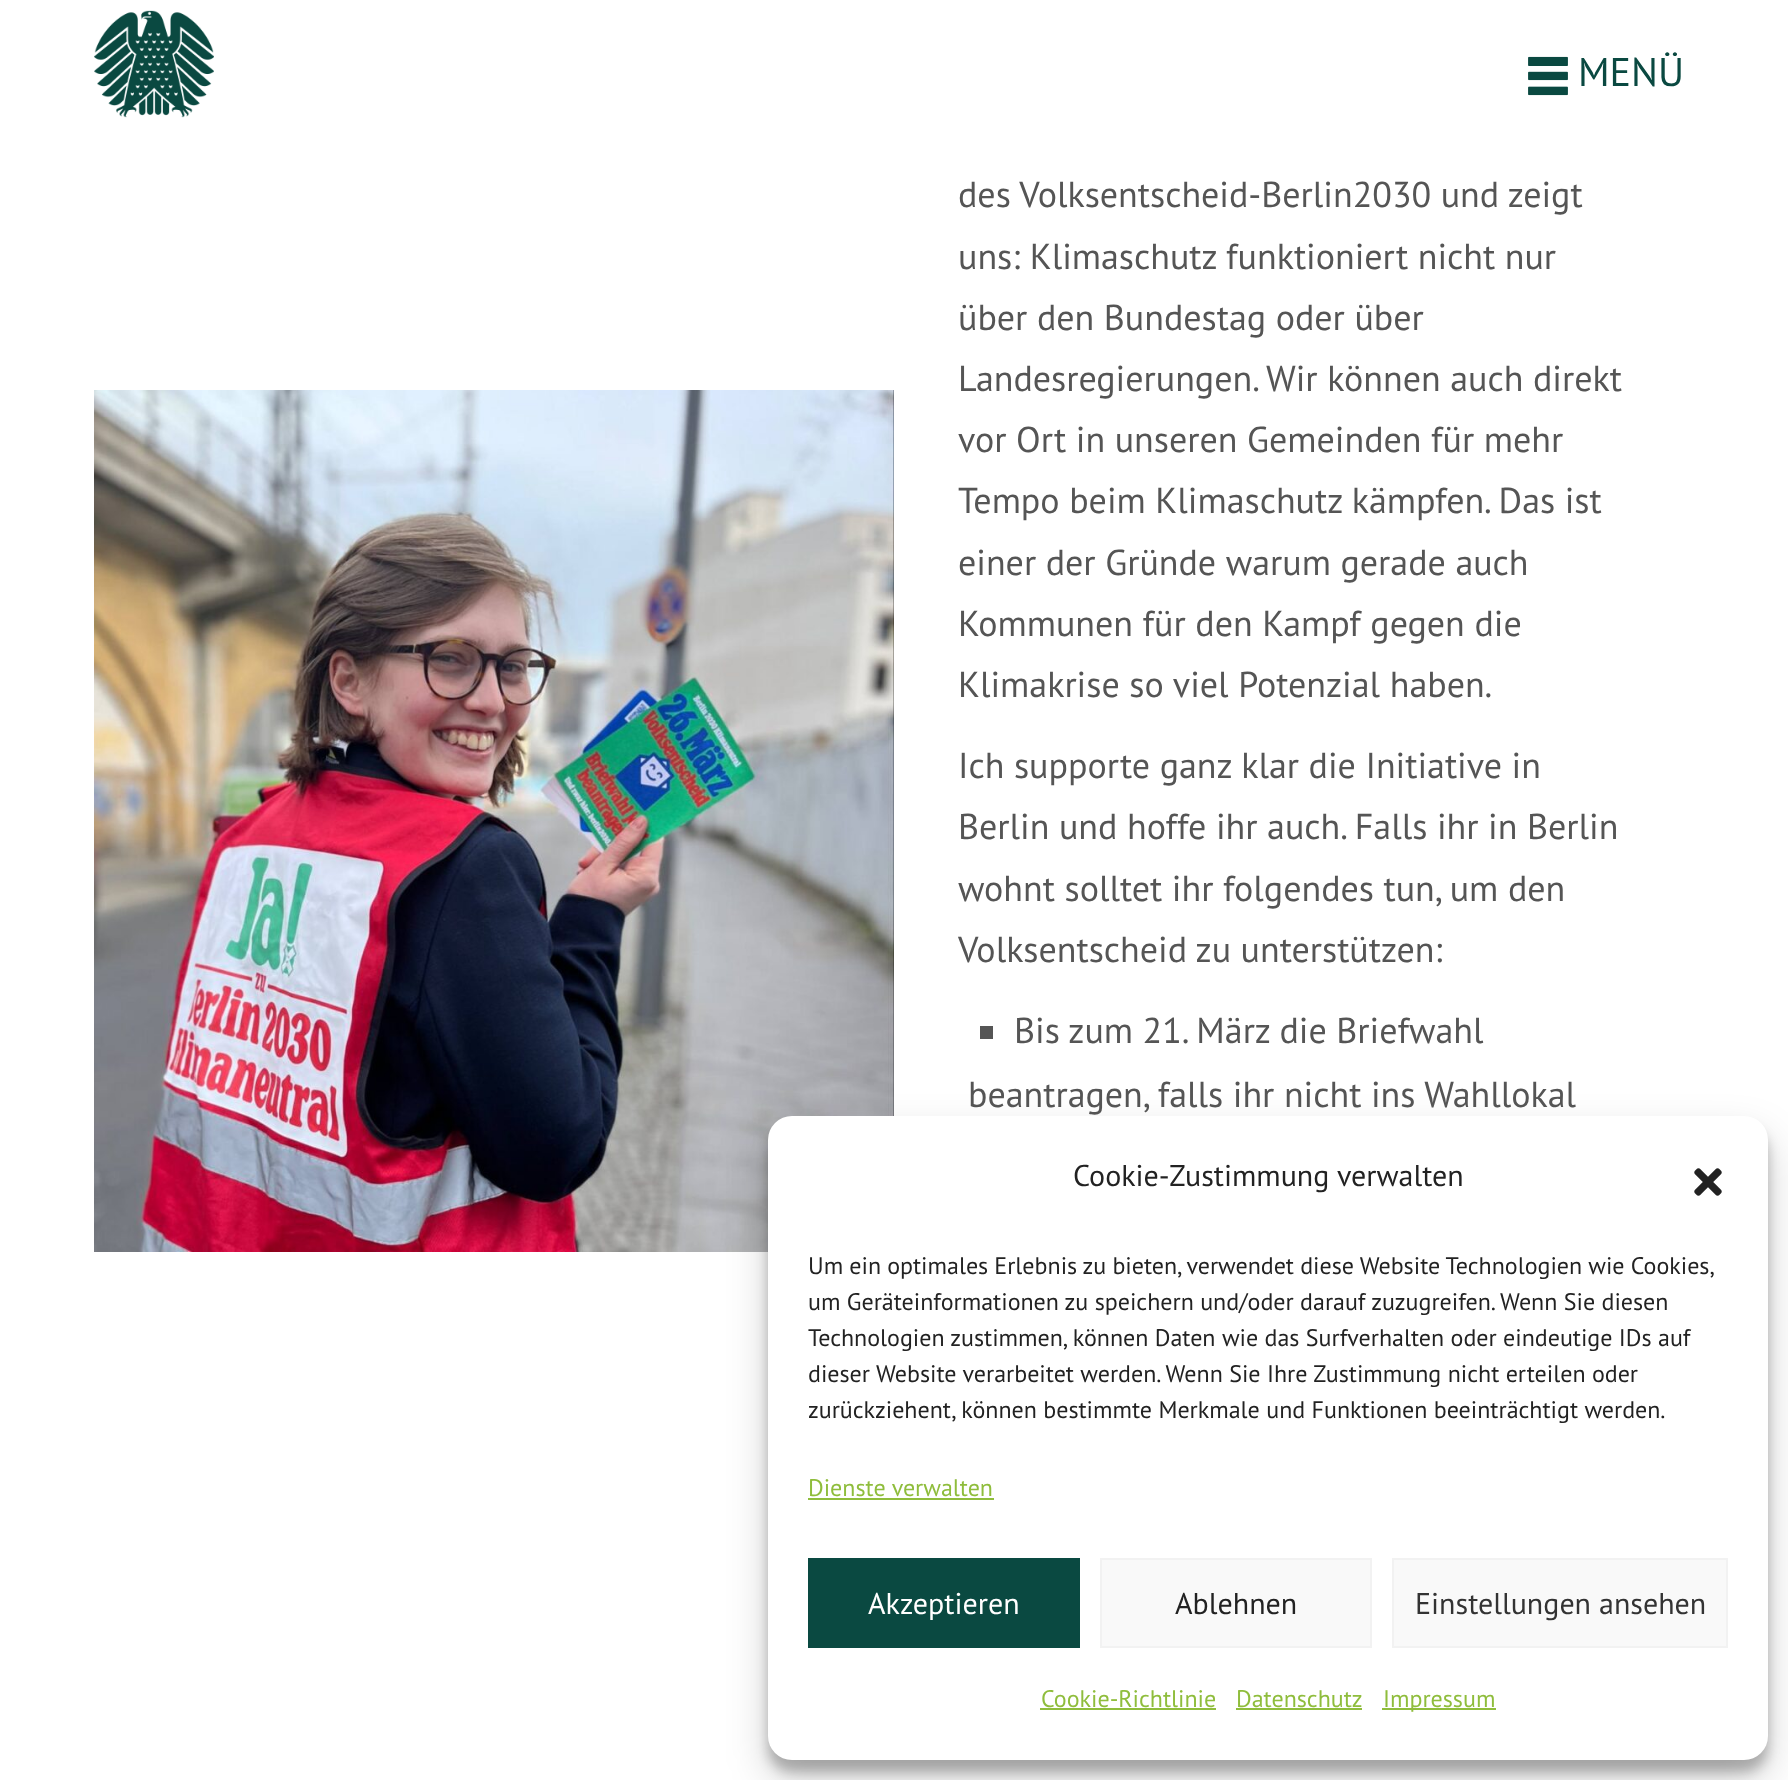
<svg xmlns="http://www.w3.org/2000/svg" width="1788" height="1780">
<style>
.a{font:40px PT Sans;fill:#0a4941}
.b{font:36px PT Sans;fill:#555}
.c{font:30px PT Sans;fill:#222}
.d{font:24px PT Sans;fill:#222}
.e{font:24px PT Sans;fill:#8fbd3c}
.f{font:30px PT Sans;fill:#fff}
.g{font:30px PT Sans;fill:#333}
</style>
<rect width="100%" height="100%" fill="#fff"/>
<image href="1.png" x="94" y="10" width="120" height="108"/>
<image href="2.png" x="1528" y="56" width="40" height="40"/>
<image href="3.png" x="94" y="390" width="800" height="862"/>
<path fill="#555" d="M980 1026h13v13H980z"/>
<rect fill="#0000003b" filter="blur(6px)" x="768" y="1128" width="1000" height="644" rx="24"/>
<rect fill="#00000030" filter="blur(20px)" x="768" y="1136" width="1000" height="644" rx="24"/>
<rect fill="#fff" x="768" y="1116" width="1000" height="644" rx="24"/>
<image href="4.png" x="1694" y="1168" width="28" height="28"/>
<path fill="#8fbd3c" d="M808 1498h186v2H808z"/>
<path fill="#0a4941" d="M808 1558h272v90H808z"/>
<path fill="#f9f9f9" stroke="#f2f2f2" stroke-width="2" d="M1101 1559h270v88H1101z"/>
<path fill="#f9f9f9" stroke="#f2f2f2" stroke-width="2" d="M1393 1559h334v88H1393z"/>
<path fill="#8fbd3c" d="M1040 1708h176v2H1040z"/>
<path fill="#8fbd3c" d="M1236 1708h126v2H1236z"/>
<path fill="#8fbd3c" d="M1382 1708h114v2H1382z"/>
<text class="a" x="1578" y="86">MENÜ</text>
<text class="b" x="958" y="207">des Volksentscheid-Berlin2030 und zeigt</text>
<text class="b" x="958" y="269">uns: Klimaschutz funktioniert nicht nur</text>
<text class="b" x="958" y="330">über den Bundestag oder über</text>
<text class="b" x="958" y="391">Landesregierungen. Wir können auch direkt</text>
<text class="b" x="958" y="452">vor Ort in unseren Gemeinden für mehr</text>
<text class="b" x="958" y="513">Tempo beim Klimaschutz kämpfen. Das ist</text>
<text class="b" x="958" y="575">einer der Gründe warum gerade auch</text>
<text class="b" x="958" y="636">Kommunen für den Kampf gegen die</text>
<text class="b" x="958" y="697">Klimakrise so viel Potenzial haben.</text>
<text class="b" x="958" y="778">Ich supporte ganz klar die Initiative in</text>
<text class="b" x="958" y="839">Berlin und hoffe ihr auch. Falls ihr in Berlin</text>
<text class="b" x="958" y="901">wohnt solltet ihr folgendes tun, um den</text>
<text class="b" x="958" y="962">Volksentscheid zu unterstützen:</text>
<text class="b" x="1014" y="1043">Bis zum 21. März die Briefwahl</text>
<text class="b" x="968" y="1107">beantragen, falls ihr nicht ins Wahllokal</text>
<text class="c" x="1073" y="1186">Cookie-Zustimmung verwalten</text>
<text class="d" x="808" y="1274" word-spacing="-0.25">Um ein optimales Erlebnis zu bieten, verwendet diese Website Technologien wie Cookies,</text>
<text class="d" x="808" y="1310">um Geräteinformationen zu speichern und/oder darauf zuzugreifen. Wenn Sie diesen</text>
<text class="d" x="808" y="1346">Technologien zustimmen, können Daten wie das Surfverhalten oder eindeutige IDs auf</text>
<text class="d" x="808" y="1382">dieser Website verarbeitet werden. Wenn Sie Ihre Zustimmung nicht erteilen oder</text>
<text class="d" x="808" y="1418">zurückziehent, können bestimmte Merkmale und Funktionen beeinträchtigt werden.</text>
<text class="e" x="808" y="1496">Dienste verwalten</text>
<text class="f" x="868" y="1614">Akzeptieren</text>
<text class="c" x="1175" y="1614">Ablehnen</text>
<text class="g" x="1415" y="1614">Einstellungen ansehen</text>
<text class="e" x="1041" y="1707">Cookie-Richtlinie</text>
<text class="e" x="1236" y="1707">Datenschutz</text>
<text class="e" x="1383" y="1707">Impressum</text>
</svg>
